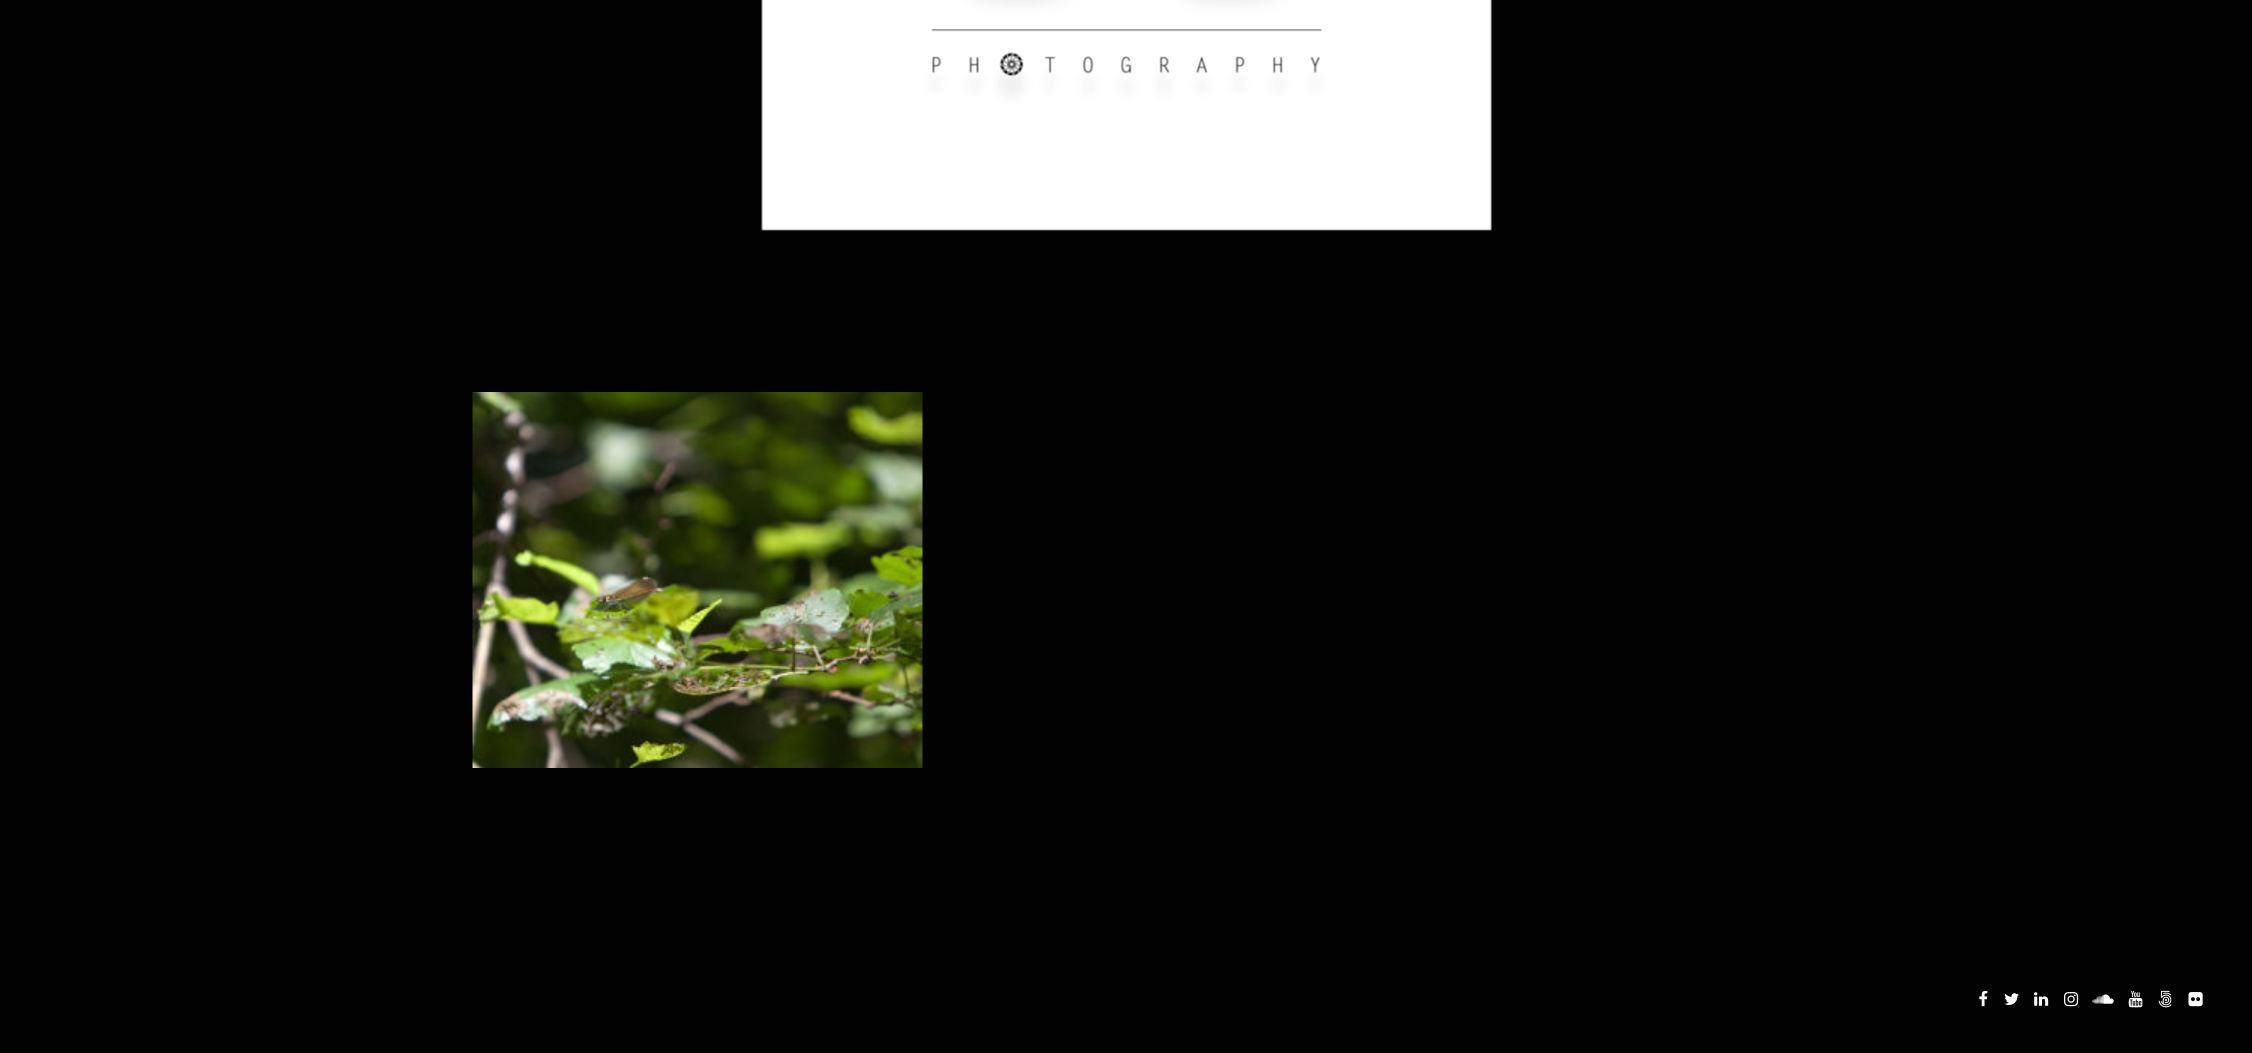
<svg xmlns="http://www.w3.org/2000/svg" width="2252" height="1053">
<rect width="100%" height="100%" fill="#020202"/>
<image href="1.png" x="761" y="0" width="731" height="231"/>
<image href="2.png" x="472" y="392" width="451" height="376"/>
<image href="3.png" x="1979" y="990" width="9" height="17"/>
<image href="4.png" x="2004" y="993" width="15" height="12"/>
<image href="5.png" x="2034" y="992" width="15" height="14"/>
<image href="6.png" x="2064" y="992" width="15" height="15"/>
<image href="7.png" x="2092" y="994" width="22" height="10"/>
<image href="8.png" x="2128" y="990" width="15" height="18"/>
<image href="9.png" x="2158" y="990" width="14" height="18"/>
<image href="10.png" x="2188" y="992" width="15" height="15"/>
</svg>
